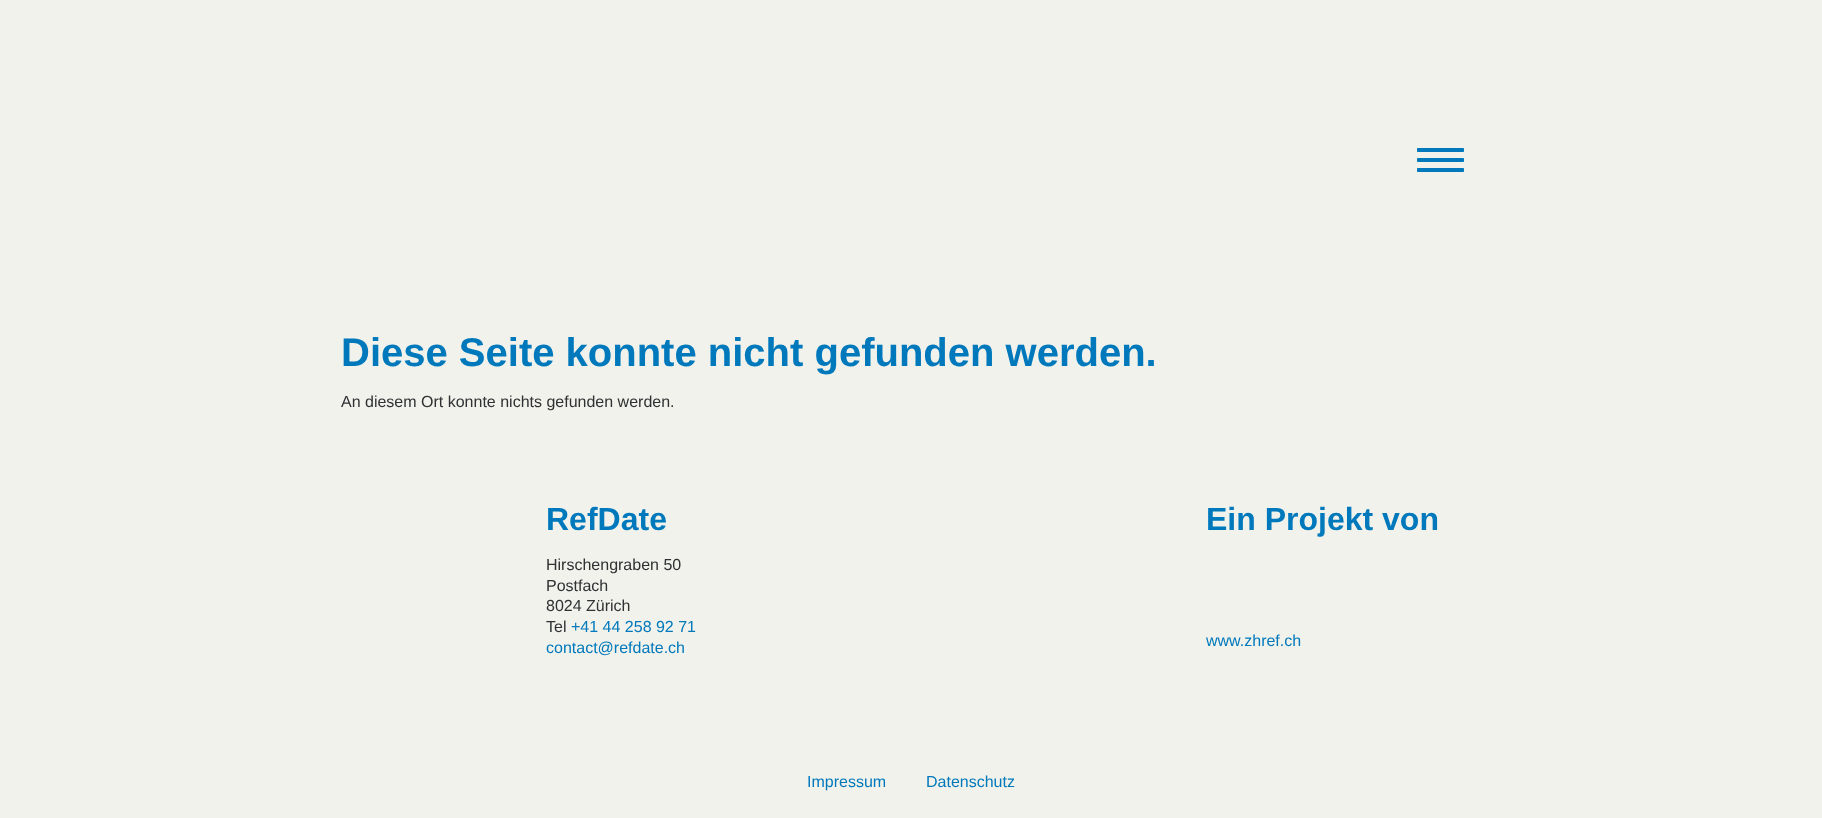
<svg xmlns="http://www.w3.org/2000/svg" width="1822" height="818">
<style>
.a{font:bold 40px Liberation Sans;fill:#0078bc}
.b{font:16px Liberation Sans;fill:#2f3133}
.c{font:bold 32px Liberation Sans;fill:#0078bc}
.d{font:16px Liberation Sans;fill:#0078bc}
</style>
<rect width="100%" height="100%" fill="#f1f2eb"/>
<path fill="#0078bc" stroke="#0078bc" d="M1417.5 158.5h46v3H1417.5z"/>
<path fill="#0078bc" stroke="#0078bc" d="M1417.5 148.5h46v3H1417.5z"/>
<path fill="#0078bc" stroke="#0078bc" d="M1417.5 168.5h46v3H1417.5z"/>
<text class="a" x="341" y="366">Diese Seite konnte nicht gefunden werden.</text>
<text class="b" x="341" y="407">An diesem Ort konnte nichts gefunden werden.</text>
<text class="c" x="546" y="530">RefDate</text>
<text class="b" x="546" y="570">Hirschengraben 50</text>
<text class="b" x="546" y="591">Postfach</text>
<text class="b" x="546" y="611">8024 Zürich</text>
<text class="b" x="546" y="632">Tel</text>
<text class="d" x="571" y="632">+41 44 258 92 71</text>
<text class="d" x="546" y="653">contact@refdate.ch</text>
<text class="c" x="1206" y="530">Ein Projekt von</text>
<text class="d" x="1206" y="646">www.zhref.ch</text>
<text class="d" x="807" y="787">Impressum</text>
<text class="d" x="926" y="787">Datenschutz</text>
</svg>
